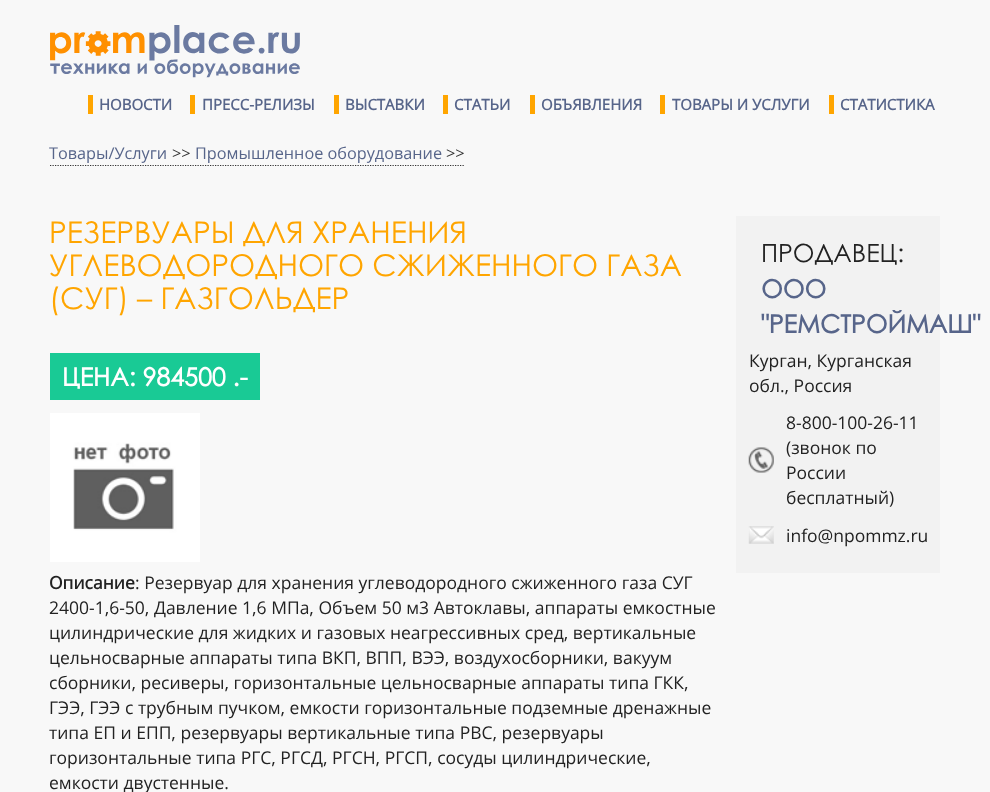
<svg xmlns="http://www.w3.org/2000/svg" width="990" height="792">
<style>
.a{font:bold 15px Open Sans;fill:#57658a}
.b{font:16.25px Open Sans;fill:#57658a}
.c{font:16.25px Open Sans;fill:#333}
.d{font:30px Century Gothic;fill:#ffa500}
.e{font:bold 25px Century Gothic;fill:#fff}
.f{font:bold 17.5px Open Sans;fill:#222}
.g{font:17.5px Open Sans;fill:#222}
.h{font:25px Century Gothic;fill:#222}
.i{font:bold 25px Century Gothic;fill:#57658a}
</style>
<rect width="100%" height="100%" fill="#f8f8f8"/>
<image href="1.png" x="50" y="25" width="250" height="53"/>
<path fill="#ffa500" d="M88 95h5v19H88z"/>
<path fill="#ffa500" d="M190 95h5v19H190z"/>
<path fill="#ffa500" d="M334 95h5v19H334z"/>
<path fill="#ffa500" d="M443 95h5v19H443z"/>
<path fill="#ffa500" d="M530 95h5v19H530z"/>
<path fill="#ffa500" d="M660 95h5v19H660z"/>
<path fill="#ffa500" d="M829 95h5v19H829z"/>
<path fill="none" stroke="#333" stroke-width="1.2" stroke-dasharray="1.25 1.25" d="M50 165.5h415"/>
<path fill="#19ca95" d="M50 353h210v47H50z"/>
<image href="2.png" x="50" y="413" width="150" height="149"/>
<path fill="#f2f2f2" d="M736 216h204v357H736z"/>
<image href="3.png" x="748" y="447" width="26" height="26"/>
<image href="4.png" x="748" y="526" width="26" height="18"/>
<text class="a" x="99" y="110">НОВОСТИ</text>
<text class="a" x="202" y="110">ПРЕСС-РЕЛИЗЫ</text>
<text class="a" x="345" y="110">ВЫСТАВКИ</text>
<text class="a" x="454" y="110">СТАТЬИ</text>
<text class="a" x="541" y="110">ОБЪЯВЛЕНИЯ</text>
<text class="a" x="672" y="110">ТОВАРЫ И УСЛУГИ</text>
<text class="a" x="840" y="110">СТАТИСТИКА</text>
<text class="b" x="49" y="159">Товары/Услуги</text>
<text class="c" x="172" y="159">&gt;&gt;</text>
<text class="b" x="195" y="159">Промышленное оборудование</text>
<text class="c" x="446" y="159">&gt;&gt;</text>
<text class="d" x="49" y="243">РЕЗЕРВУАРЫ ДЛЯ ХРАНЕНИЯ</text>
<text class="d" x="49" y="276">УГЛЕВОДОРОДНОГО СЖИЖЕННОГО ГАЗА</text>
<text class="d" x="49" y="309">(СУГ) – ГАЗГОЛЬДЕР</text>
<text class="e" x="62" y="386">ЦЕНА: 984500 .-</text>
<text class="f" x="49" y="589">Описание</text>
<text class="g" x="135" y="589">: Резервуар для хранения углеводородного сжиженного газа СУГ</text>
<text class="g" x="49" y="614">2400-1,6-50, Давление 1,6 МПа, Объем 50 м3 Автоклавы, аппараты емкостные</text>
<text class="g" x="49" y="639">цилиндрические для жидких и газовых неагрессивных сред, вертикальные</text>
<text class="g" x="49" y="664">цельносварные аппараты типа ВКП, ВПП, ВЭЭ, воздухосборники, вакуум</text>
<text class="g" x="49" y="689">сборники, ресиверы, горизонтальные цельносварные аппараты типа ГКК,</text>
<text class="g" x="49" y="714">ГЭЭ, ГЭЭ с трубным пучком, емкости горизонтальные подземные дренажные</text>
<text class="g" x="49" y="739">типа ЕП и ЕПП, резервуары вертикальные типа РВС, резервуары</text>
<text class="g" x="49" y="764">горизонтальные типа РГС, РГСД, РГСН, РГСП, сосуды цилиндрические,</text>
<text class="g" x="49" y="789">емкости двустенные.</text>
<text class="h" x="761" y="262">ПРОДАВЕЦ:</text>
<text class="i" x="761" y="298">ООО</text>
<text class="i" x="761" y="333">"РЕМСТРОЙМАШ"</text>
<text class="g" x="749" y="367">Курган, Курганская</text>
<text class="g" x="749" y="392">обл., Россия</text>
<text class="g" x="786" y="429">8-800-100-26-11</text>
<text class="g" x="786" y="454">(звонок по</text>
<text class="g" x="786" y="479">России</text>
<text class="g" x="786" y="504">бесплатный)</text>
<text class="g" x="786" y="542">info@npommz.ru</text>
</svg>
